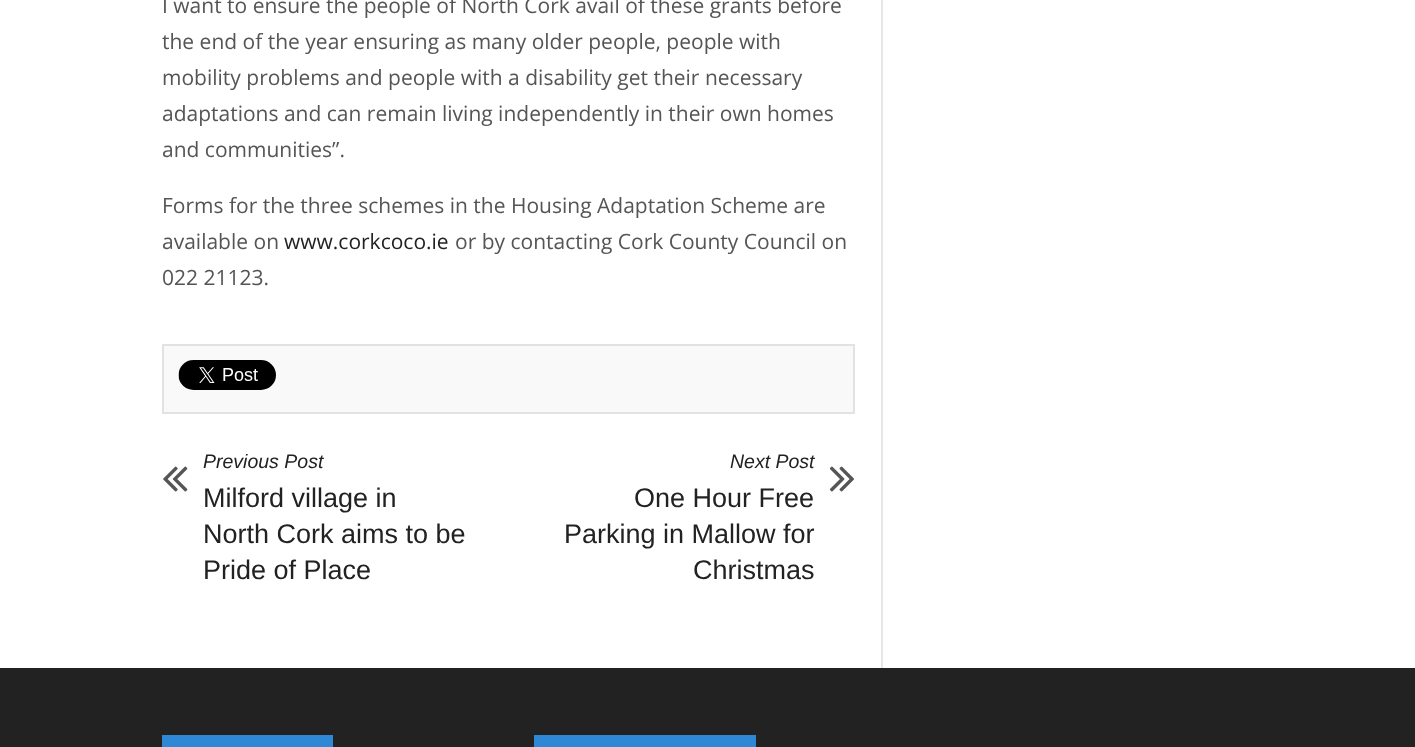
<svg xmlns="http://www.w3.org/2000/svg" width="1415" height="747">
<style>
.a{font:21px Open Sans;fill:#555}
.b{font:21px Open Sans;fill:#222}
.c{font:italic 19.5px Liberation Sans;fill:#222}
.d{font:27px Liberation Sans;fill:#222}
</style>
<rect width="100%" height="100%" fill="#fff"/>
<path fill="#e6e6e6" d="M881 0h2v668H881z"/>
<path fill="#f9f9f9" stroke="#e2e2e2" stroke-width="2" d="M163 345h691v68H163z"/>
<image href="1.png" x="178" y="360" width="98" height="30"/>
<image href="2.png" x="163" y="466" width="25" height="26"/>
<image href="3.png" x="829" y="466" width="25" height="26"/>
<path fill="#222" d="M0 668h1415v79H0z"/>
<path fill="#2f88d6" d="M162 735h171v12H162z"/>
<path fill="#2f88d6" d="M534 735h222v12H534z"/>
<text class="a" x="162" y="13">I want to ensure the people of North Cork avail of these grants before</text>
<text class="a" x="162" y="49">the end of the year ensuring as many older people, people with</text>
<text class="a" x="162" y="85">mobility problems and people with a disability get their necessary</text>
<text class="a" x="162" y="121">adaptations and can remain living independently in their own homes</text>
<text class="a" x="162" y="157">and communities”.</text>
<text class="a" x="162" y="213">Forms for the three schemes in the Housing Adaptation Scheme are</text>
<text class="a" x="162" y="249">available on</text>
<text class="b" x="284" y="249">www.corkcoco.ie</text>
<text class="a" x="455" y="249">or by contacting Cork County Council on</text>
<text class="a" x="162" y="285">022 21123.</text>
<text class="c" x="203" y="468">Previous Post</text>
<text class="d" x="203" y="507">Milford village in</text>
<text class="d" x="203" y="543">North Cork aims to be</text>
<text class="d" x="203" y="579">Pride of Place</text>
<text class="c" x="730" y="468">Next Post</text>
<text class="d" x="634" y="507">One Hour Free</text>
<text class="d" x="564" y="543">Parking in Mallow for</text>
<text class="d" x="693" y="579">Christmas</text>
</svg>
